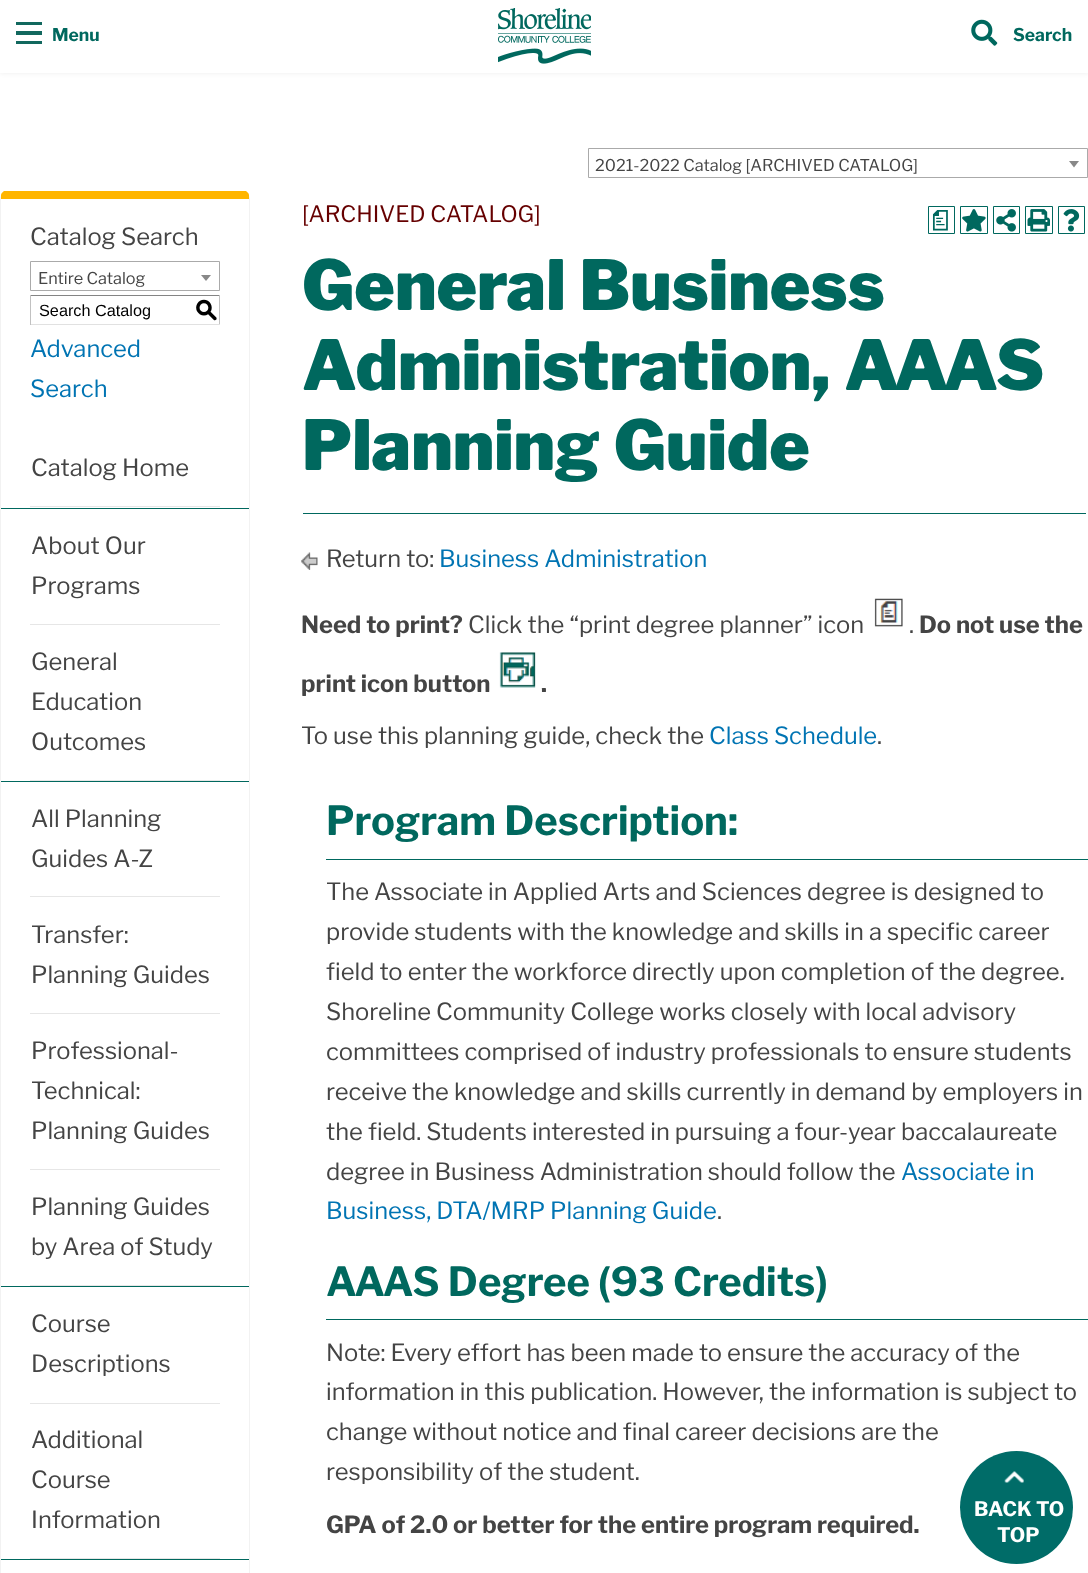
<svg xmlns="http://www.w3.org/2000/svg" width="1088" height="1573">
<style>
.a{font:bold 17.5px Libre Franklin;fill:#00685e}
.b{font:16.25px Libre Franklin;fill:#444}
.c{font:23.75px Libre Franklin;fill:#444}
.d{font:16.25px Liberation Sans;fill:#000}
.e{font:500 22.5px 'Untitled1';fill:#000}
.f{font:23.75px Libre Franklin;fill:#0074b3}
.g{font:22.5px Libre Franklin;fill:#600}
.h{font:500 22.5px 'Untitled1';fill:#00685e}
.i{font:900 68.75px Libre Franklin;fill:#00685e}
.j{font:bold 23.75px Libre Franklin;fill:#444}
.k{font:bold 40px Libre Franklin;fill:#00685e}
.l{font:bold 20px Libre Franklin;fill:#fff}
</style>
<rect width="100%" height="100%" fill="#fff"/>
<path fill="#0000000d" filter="blur(2px)" d="M0 1h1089v73H0z"/>
<path fill="#fff" d="M0 0h1088v73H0z"/>
<path fill="#12685e" d="M16 22h26v3H16z"/>
<path fill="#12685e" d="M16 31h26v4H16z"/>
<path fill="#12685e" d="M16 41h26v3H16z"/>
<image href="1.png" x="498" y="8" width="93" height="56"/>
<image href="2.png" x="971" y="19" width="27" height="27"/>
<path fill="none" stroke="#aaa" d="M588.5 148.5h499v29H588.5z"/>
<path fill="#888" d="M1069 161h10l-5 6.5z"/>
<path fill="#ffb500" d="M1 195c0-2 2-3 3-4h242c1 1 3 2 3 4v4h-248z"/>
<path fill="#f2f2f2" d="M250 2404v-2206l-1-3v4v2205c0 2-1 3-1 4c1-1 2-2 2-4z"/>
<path fill="#f2f2f2" d="M0 198v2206c0 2 1 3 2 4c0-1-1-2-1-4v-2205v-4z"/>
<path fill="none" stroke="#aaa" d="M30.5 261.5h189v29H30.5z"/>
<path fill="#888" d="M201 275h10l-5 6z"/>
<path fill="#848484" d="M30 295h190v1H30z"/>
<path fill="#c1c1c1" d="M219 295h1v30H219z"/>
<path fill="#e1e1e1" d="M30 324h190v1H30z"/>
<path fill="#c1c1c1" d="M30 295h1v30H30z"/>
<path fill="#e6e6e6" d="M30 506h190v1H30z"/>
<path fill="#00685e" d="M1 508h248v1H1z"/>
<path fill="#e6e6e6" d="M30 624h190v1H30z"/>
<path fill="#e6e6e6" d="M30 780h190v1H30z"/>
<path fill="#00685e" d="M1 781h248v1H1z"/>
<path fill="#e6e6e6" d="M30 896h190v1H30z"/>
<path fill="#e6e6e6" d="M30 1013h190v1H30z"/>
<path fill="#e6e6e6" d="M30 1169h190v1H30z"/>
<path fill="#e6e6e6" d="M30 1285h190v1H30z"/>
<path fill="#00685e" d="M1 1286h248v1H1z"/>
<path fill="#e6e6e6" d="M30 1403h190v1H30z"/>
<path fill="#e6e6e6" d="M30 1558h190v1H30z"/>
<path fill="#00685e" d="M1 1559h248v1H1z"/>
<path fill="none" stroke="#00685e" d="M928.5 206.5h26v27H928.5z"/>
<path fill="none" stroke="#00685e" d="M960.5 206.5h27v27H960.5z"/>
<image href="3.png" x="962" y="209" width="24" height="23"/>
<path fill="none" stroke="#00685e" d="M993.5 206.5h26v27H993.5z"/>
<image href="4.png" x="996" y="209" width="20" height="23"/>
<path fill="none" stroke="#00685e" d="M1025.5 206.5h27v27H1025.5z"/>
<image href="5.png" x="1027" y="209" width="23" height="23"/>
<path fill="none" stroke="#00685e" d="M1058.5 206.5h26v27H1058.5z"/>
<image href="6.png" x="1063" y="209" width="17" height="23"/>
<path fill="#00685e" d="M303 513h783v1H303z"/>
<image href="7.png" x="301" y="552" width="17" height="18"/>
<image href="8.png" x="874" y="598" width="29" height="29"/>
<image href="9.png" x="499" y="652" width="37" height="36"/>
<path fill="#00685e" d="M326 859h762v1H326z"/>
<path fill="#00685e" d="M326 1319h762v1H326z"/>
<circle fill="#006c68" cx="1016.5" cy="1507.5" r="56.5"/>
<image href="10.png" x="1004" y="1471" width="20" height="12"/>
<text class="a" x="52" y="41">Menu</text>
<text class="a" x="1013" y="41">Search</text>
<text class="b" x="595" y="171">2021-2022 Catalog [ARCHIVED CATALOG]</text>
<text class="c" x="30" y="245">Catalog Search</text>
<text class="b" x="38" y="284">Entire Catalog</text>
<text class="d" x="39" y="316">Search Catalog</text>
<text class="e" x="195" y="317">S</text>
<text class="f" x="30" y="357">Advanced</text>
<text class="f" x="30" y="397">Search</text>
<text class="c" x="31" y="476">Catalog Home</text>
<text class="c" x="31" y="554">About Our</text>
<text class="c" x="31" y="594">Programs</text>
<text class="c" x="31" y="670">General</text>
<text class="c" x="31" y="710">Education</text>
<text class="c" x="31" y="750">Outcomes</text>
<text class="c" x="31" y="827">All Planning</text>
<text class="c" x="31" y="867">Guides A-Z</text>
<text class="c" x="31" y="943">Transfer:</text>
<text class="c" x="31" y="983">Planning Guides</text>
<text class="c" x="31" y="1059">Professional-</text>
<text class="c" x="31" y="1099">Technical:</text>
<text class="c" x="31" y="1139">Planning Guides</text>
<text class="c" x="31" y="1215">Planning Guides</text>
<text class="c" x="31" y="1255">by Area of Study</text>
<text class="c" x="31" y="1332">Course</text>
<text class="c" x="31" y="1372">Descriptions</text>
<text class="c" x="31" y="1448">Additional</text>
<text class="c" x="31" y="1488">Course</text>
<text class="c" x="31" y="1528">Information</text>
<text class="g" x="302" y="222">[ARCHIVED CATALOG]</text>
<text class="h" x="929" y="227">a</text>
<text class="i" x="302" y="310">General Business</text>
<text class="i" x="302" y="390">Administration, AAAS</text>
<text class="i" x="302" y="470">Planning Guide</text>
<text class="c" x="326" y="567">Return to:</text>
<text class="f" x="439" y="567">Business Administration</text>
<text class="j" x="301" y="633">Need to print?</text>
<text class="c" x="468" y="633">Click the “print degree planner” icon</text>
<text class="c" x="909" y="633">.</text>
<text class="j" x="919" y="633">Do not use the</text>
<text class="j" x="301" y="692">print icon button</text>
<text class="j" x="541" y="692">.</text>
<text class="c" x="301" y="744">To use this planning guide, check the</text>
<text class="f" x="709" y="744">Class Schedule</text>
<text class="c" x="877" y="744">.</text>
<text class="k" x="326" y="835">Program Description:</text>
<text class="c" x="326" y="900">The Associate in Applied Arts and Sciences degree is designed to</text>
<text class="c" x="326" y="940">provide students with the knowledge and skills in a specific career</text>
<text class="c" x="326" y="980">field to enter the workforce directly upon completion of the degree.</text>
<text class="c" x="326" y="1020">Shoreline Community College works closely with local advisory</text>
<text class="c" x="326" y="1060">committees comprised of industry professionals to ensure students</text>
<text class="c" x="326" y="1100">receive the knowledge and skills currently in demand by employers in</text>
<text class="c" x="326" y="1140">the field. Students interested in pursuing a four-year baccalaureate</text>
<text class="c" x="326" y="1180">degree in Business Administration should follow the</text>
<text class="f" x="901" y="1180">Associate in</text>
<text class="f" x="326" y="1219">Business, DTA/MRP Planning Guide</text>
<text class="c" x="717" y="1219">.</text>
<text class="k" x="326" y="1296">AAAS Degree (93 Credits)</text>
<text class="c" x="326" y="1361">Note: Every effort has been made to ensure the accuracy of the</text>
<text class="c" x="326" y="1400">information in this publication. However, the information is subject to</text>
<text class="c" x="326" y="1440">change without notice and final career decisions are the</text>
<text class="c" x="326" y="1480">responsibility of the student.</text>
<text class="j" x="326" y="1533">GPA of 2.0 or better for the entire program required.</text>
<text class="l" x="974" y="1516">BACK TO</text>
<text class="l" x="997" y="1542">TOP</text>
</svg>
